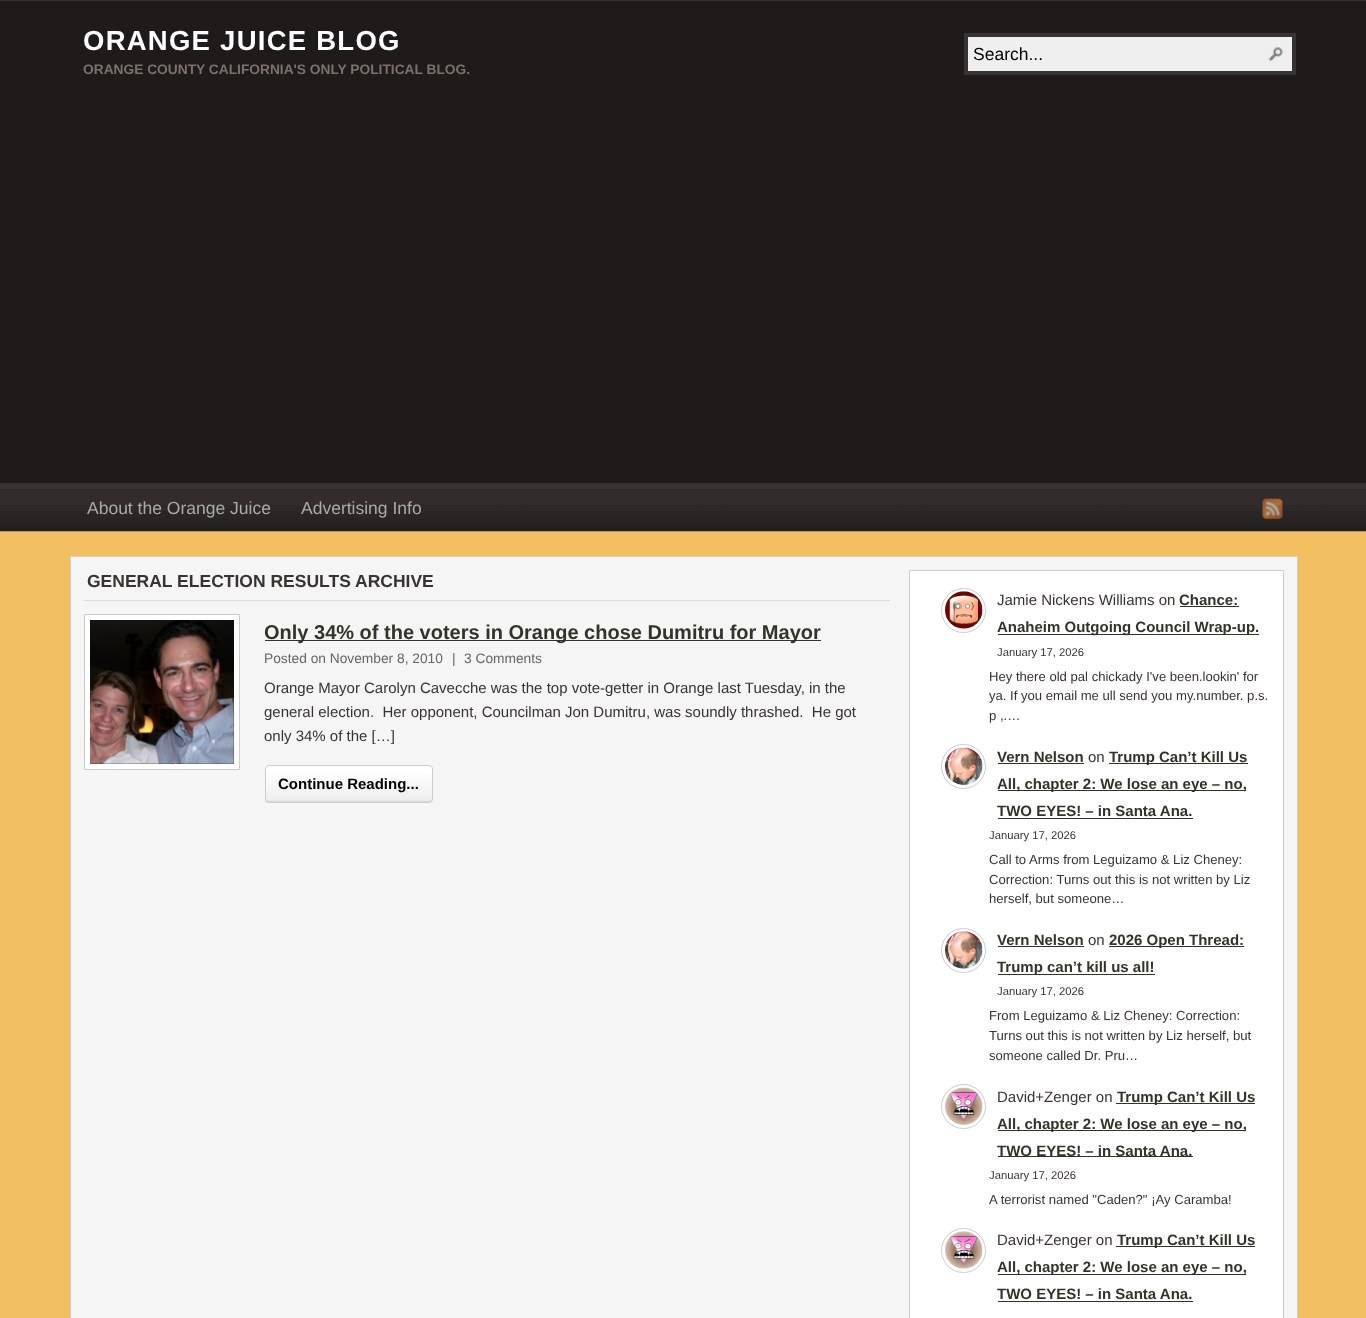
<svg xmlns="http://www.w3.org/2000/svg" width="1366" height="1318">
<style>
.a{font:bold 27.5px Liberation Sans;letter-spacing:1.25px;fill:#fff}
.b{font:bold 13.75px Liberation Sans;fill:#7d716d}
.c{font:17.5px Liberation Sans;fill:#000}
.d{font:17.5px Liberation Sans;fill:#aaa}
.e{font:bold 17.5px Liberation Sans;fill:#383331}
.f{font:bold 20px Liberation Sans;fill:#313428}
.g{font:13.75px Liberation Sans;fill:#666}
.h{font:15px Liberation Sans;fill:#383331}
.i{font:bold 15px Liberation Sans;fill:#000}
.j{font:bold 15px Liberation Sans;fill:#313428}
.k{font:11.25px Liberation Sans;fill:#383331}
.l{font:13.1px Liberation Sans;fill:#383331}
</style>
<rect width="100%" height="100%" fill="#f2bf63"/>
<path fill="#333" d="M0 0h1366v1H0z"/>
<path fill="#1e1b1a" d="M0 1h1366v482H0z"/>
<path fill="#383332" d="M0 483h1366v6H0z"/>
<path fill="#efefef" stroke="#383332" stroke-width="4" d="M966 35h328v38H966z"/>
<image href="1.png" x="1268" y="47" width="15" height="15"/>
<path fill="#322c2c" d="M0 489h1366v16H0z"/>
<image href="2.png" x="0" y="505" width="1366" height="27"/>
<image href="3.png" x="1262" y="498" width="21" height="21"/>
<path fill="#f5f5f5" stroke="#d3d1c7" d="M70.5 556.5h1227v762H70.5z"/>
<path fill="#ddd" d="M84 600h806v1H84z"/>
<path fill="#fff" stroke="#ccc" d="M84.5 614.5h155v155H84.5z"/>
<path fill="#111" d="M90 620h144v144H90z"/>
<image href="4.png" x="90" y="620" width="144" height="144"/>
<path fill="#313428" d="M265 640h556v1H265z"/>
<image href="5.png" x="265" y="766" width="168" height="37"/>
<rect fill="none" stroke="#ccc" x="265.5" y="765.5" width="167" height="37" rx="3.5"/>
<path fill="#fff" stroke="#ccc" d="M909.5 570.5h374v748H909.5z"/>
<circle fill="none" stroke="#ccc" cx="963.5" cy="610.5" r="22"/>
<image href="6.png" x="945" y="591" width="38" height="38"/>
<path fill="#313428" d="M1180 606h59v1H1180z"/>
<path fill="#313428" d="M998 634h261v1H998z"/>
<circle fill="none" stroke="#ccc" cx="963.5" cy="766.5" r="22"/>
<image href="7.png" x="945" y="747" width="38" height="38"/>
<path fill="#313428" d="M998 763h86v1H998z"/>
<path fill="#313428" d="M1109 763h139v1H1109z"/>
<path fill="#313428" d="M998 790h248v1H998z"/>
<path fill="#313428" d="M998 818h195v1H998z"/>
<circle fill="none" stroke="#ccc" cx="963.5" cy="950.5" r="22"/>
<image href="8.png" x="945" y="931" width="38" height="38"/>
<path fill="#313428" d="M998 946h86v1H998z"/>
<path fill="#313428" d="M1109 946h135v1H1109z"/>
<path fill="#313428" d="M998 974h157v1H998z"/>
<circle fill="none" stroke="#ccc" cx="963.5" cy="1106.5" r="22"/>
<image href="9.png" x="945" y="1087" width="38" height="38"/>
<path fill="#313428" d="M1116 1103h139v1H1116z"/>
<path fill="#313428" d="M998 1130h248v1H998z"/>
<path fill="#313428" d="M998 1156h195v1H998z"/>
<circle fill="none" stroke="#ccc" cx="963.5" cy="1250.5" r="22"/>
<image href="10.png" x="945" y="1231" width="38" height="38"/>
<path fill="#313428" d="M1116 1246h139v1H1116z"/>
<path fill="#313428" d="M998 1274h248v1H998z"/>
<path fill="#313428" d="M998 1301h195v1H998z"/>
<text class="a" x="83" y="50">ORANGE JUICE BLOG</text>
<text class="b" x="83" y="74">ORANGE COUNTY CALIFORNIA'S ONLY POLITICAL BLOG.</text>
<text class="c" x="973" y="60">Search...</text>
<text class="d" x="87" y="514">About the Orange Juice</text>
<text class="d" x="301" y="514">Advertising Info</text>
<text class="e" x="87" y="587">GENERAL ELECTION RESULTS ARCHIVE</text>
<text class="f" x="264" y="639">Only 34% of the voters in Orange chose Dumitru for Mayor</text>
<text class="g" x="264" y="663">Posted on November 8, 2010</text>
<text class="g" x="452" y="663">|</text>
<text class="g" x="464" y="663">3 Comments</text>
<text class="h" x="264" y="693">Orange Mayor Carolyn Cavecche was the top vote-getter in Orange last Tuesday, in the</text>
<text class="h" xml:space="preserve" x="264" y="717">general election.  Her opponent, Councilman Jon Dumitru, was soundly thrashed.  He got</text>
<text class="h" x="264" y="741">only 34% of the […]</text>
<text class="i" x="278" y="789">Continue Reading...</text>
<text class="h" x="997" y="605">Jamie Nickens Williams on</text>
<text class="j" x="1179" y="605">Chance:</text>
<text class="j" x="997" y="632">Anaheim Outgoing Council Wrap-up.</text>
<text class="k" x="997" y="656">January 17, 2026</text>
<text class="l" x="989" y="681">Hey there old pal chickady I've been.lookin' for</text>
<text class="l" x="989" y="700">ya. If you email me ull send you my.number. p.s.</text>
<text class="l" x="989" y="720">p ,.…</text>
<text class="j" x="997" y="762">Vern Nelson</text>
<text class="h" x="1088" y="762">on</text>
<text class="j" x="1109" y="762">Trump Can’t Kill Us</text>
<text class="j" x="997" y="789">All, chapter 2: We lose an eye – no,</text>
<text class="j" x="997" y="816">TWO EYES! – in Santa Ana.</text>
<text class="k" x="989" y="839">January 17, 2026</text>
<text class="l" x="989" y="864">Call to Arms from Leguizamo &amp; Liz Cheney:</text>
<text class="l" x="989" y="884">Correction: Turns out this is not written by Liz</text>
<text class="l" x="989" y="903">herself, but someone…</text>
<text class="j" x="997" y="945">Vern Nelson</text>
<text class="h" x="1088" y="945">on</text>
<text class="j" x="1109" y="945">2026 Open Thread:</text>
<text class="j" x="997" y="972">Trump can’t kill us all!</text>
<text class="k" x="997" y="995">January 17, 2026</text>
<text class="l" x="989" y="1020">From Leguizamo &amp; Liz Cheney: Correction:</text>
<text class="l" x="989" y="1040">Turns out this is not written by Liz herself, but</text>
<text class="l" x="989" y="1060">someone called Dr. Pru…</text>
<text class="h" x="997" y="1102">David+Zenger on</text>
<text class="j" x="1117" y="1102">Trump Can’t Kill Us</text>
<text class="j" x="997" y="1129">All, chapter 2: We lose an eye – no,</text>
<text class="j" x="997" y="1156">TWO EYES! – in Santa Ana.</text>
<text class="k" x="989" y="1179">January 17, 2026</text>
<text class="l" x="989" y="1204">A terrorist named "Caden?" ¡Ay Caramba!</text>
<text class="h" x="997" y="1245">David+Zenger on</text>
<text class="j" x="1117" y="1245">Trump Can’t Kill Us</text>
<text class="j" x="997" y="1272">All, chapter 2: We lose an eye – no,</text>
<text class="j" x="997" y="1299">TWO EYES! – in Santa Ana.</text>
</svg>
